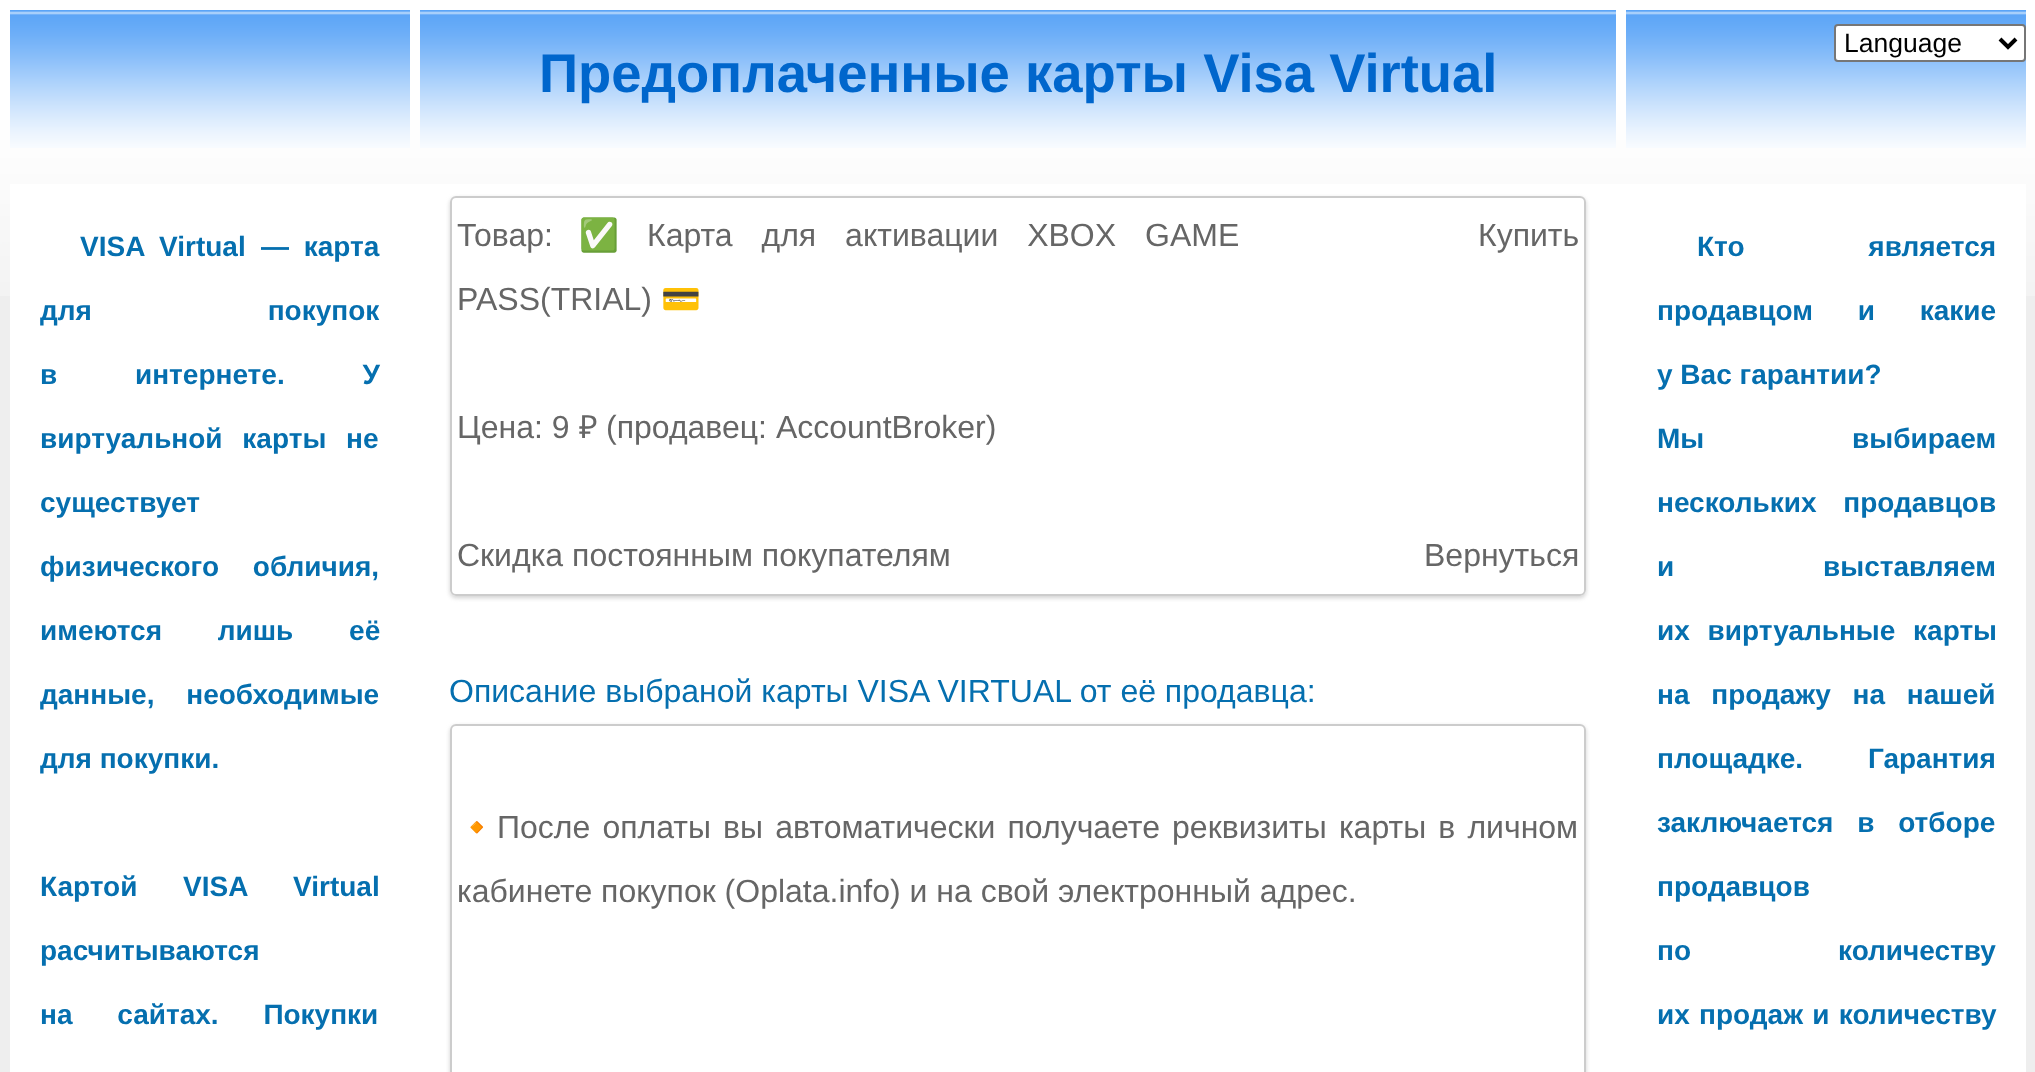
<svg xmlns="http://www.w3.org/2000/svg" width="2035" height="1072">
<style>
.a{font:26.5px Liberation Sans;fill:#000}
.b{font:bold 54.4px Liberation Sans;fill:#06c}
.c{font:bold 28px Liberation Sans;fill:#056faf}
.d{font:32px Liberation Sans;fill:#666}
.e{font:32px Noto Color Emoji;fill:#666}
.f{font:32px Noto Sans;fill:#666}
.g{font:32px Liberation Sans;fill:#056faf}
</style>
<defs>
<clipPath id="clip1"><path d="M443 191h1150v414h-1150zm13 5h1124c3.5 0 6 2.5 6 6v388c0 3.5-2.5 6-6 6h-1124c-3.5 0-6-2.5-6-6v-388c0-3.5 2.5-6 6-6z" clip-rule="evenodd"/></clipPath>
<clipPath id="clip2"><path d="M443 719h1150v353h-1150zm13 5h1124c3.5 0 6 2.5 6 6v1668c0 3.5-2.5 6-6 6h-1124c-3.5 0-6-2.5-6-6v-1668c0-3.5 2.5-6 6-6z" clip-rule="evenodd"/></clipPath>
</defs>
<rect width="100%" height="100%" fill="#eee"/>
<image href="1.png" x="0" y="0" width="2035" height="296"/>
<image href="2.png" x="10" y="10" width="400" height="138"/>
<image href="2.png" x="1626" y="10" width="400" height="138"/>
<rect fill="#fff" stroke="#767676" stroke-width="2" x="1835" y="25" width="190" height="36" rx="3"/>
<path fill="none" stroke="#000" stroke-width="4" d="M2000 39l8 8l8-8"/>
<image href="3.png" x="420" y="10" width="1196" height="138"/>
<path fill="#fff" d="M10 184h2016v888H10z"/>
<g clip-path="url(#clip1)">
<rect fill="#d1d1d1" filter="blur(2px)" x="450" y="198" width="1136" height="400" rx="6"/>
</g>
<rect fill="none" stroke="#ccc" stroke-width="2" x="451" y="197" width="1134" height="398" rx="5"/>
<g clip-path="url(#clip2)">
<rect fill="#d1d1d1" filter="blur(2px)" x="450" y="726" width="1136" height="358" rx="6"/>
</g>
<rect fill="none" stroke="#ccc" stroke-width="2" x="451" y="725" width="1134" height="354" rx="5"/>
<text class="a" x="1844" y="52">Language</text>
<text class="b" x="539" y="92">Предоплаченные карты Visa Virtual</text>
<text class="c" x="80" y="256" word-spacing="7">VISA Virtual</text>
<text class="c" x="261" y="256" word-spacing="7">— карта</text>
<text class="c" x="40" y="320" word-spacing="168">для покупок</text>
<text class="c" x="40" y="384" word-spacing="70">в интернете. У</text>
<text class="c" x="40" y="448" word-spacing="12">виртуальной карты не</text>
<text class="c" x="40" y="512">существует</text>
<text class="c" x="40" y="576" word-spacing="26">физического обличия,</text>
<text class="c" x="40" y="640" word-spacing="48">имеются лишь её</text>
<text class="c" x="40" y="704" word-spacing="24">данные, необходимые</text>
<text class="c" x="40" y="768">для покупки.</text>
<text class="c" x="40" y="896">Картой</text>
<text class="c" x="183" y="896" word-spacing="38">VISA Virtual</text>
<text class="c" x="40" y="960">расчитываются</text>
<text class="c" x="40" y="1024" word-spacing="37">на сайтах. Покупки</text>
<text class="d" x="457" y="246">Товар:</text>
<text class="e" x="579" y="246">✅</text>
<text class="d" x="647" y="246" word-spacing="20">Карта для активации XBOX GAME</text>
<text class="d" x="457" y="310">PASS(TRIAL)</text>
<text class="e" x="661" y="310">💳</text>
<text class="d" x="457" y="438">Цена: 9</text>
<text class="f" x="579" y="438">₽</text>
<text class="d" x="606" y="438">(продавец: AccountBroker)</text>
<text class="d" x="457" y="566">Скидка постоянным покупателям</text>
<text class="d" x="1478" y="246">Купить</text>
<text class="d" x="1424" y="566">Вернуться</text>
<text class="g" x="449" y="702">Описание выбраной карты VISA VIRTUAL от её продавца:</text>
<text class="e" x="457" y="838">🔸</text>
<text class="d" x="497" y="838" word-spacing="3.25">После оплаты вы автоматически получаете реквизиты карты в личном</text>
<text class="d" x="457" y="902">кабинете покупок (Oplata.info) и на свой электронный адрес.</text>
<text class="c" x="1697" y="256" word-spacing="116">Кто является</text>
<text class="c" x="1657" y="320" word-spacing="37">продавцом и какие</text>
<text class="c" x="1657" y="384">у Вас гарантии?</text>
<text class="c" x="1657" y="448">Мы</text>
<text class="c" x="1852" y="448">выбираем</text>
<text class="c" x="1657" y="512" word-spacing="19">нескольких продавцов</text>
<text class="c" x="1657" y="576">и</text>
<text class="c" x="1823" y="576">выставляем</text>
<text class="c" x="1657" y="640" word-spacing="10">их виртуальные карты</text>
<text class="c" x="1657" y="704" word-spacing="14">на продажу на нашей</text>
<text class="c" x="1657" y="768" word-spacing="57">площадке. Гарантия</text>
<text class="c" x="1657" y="832" word-spacing="16">заключается в отборе</text>
<text class="c" x="1657" y="896">продавцов</text>
<text class="c" x="1657" y="960">по</text>
<text class="c" x="1838" y="960">количеству</text>
<text class="c" x="1657" y="1024" word-spacing="1.5">их продаж и количеству</text>
</svg>
